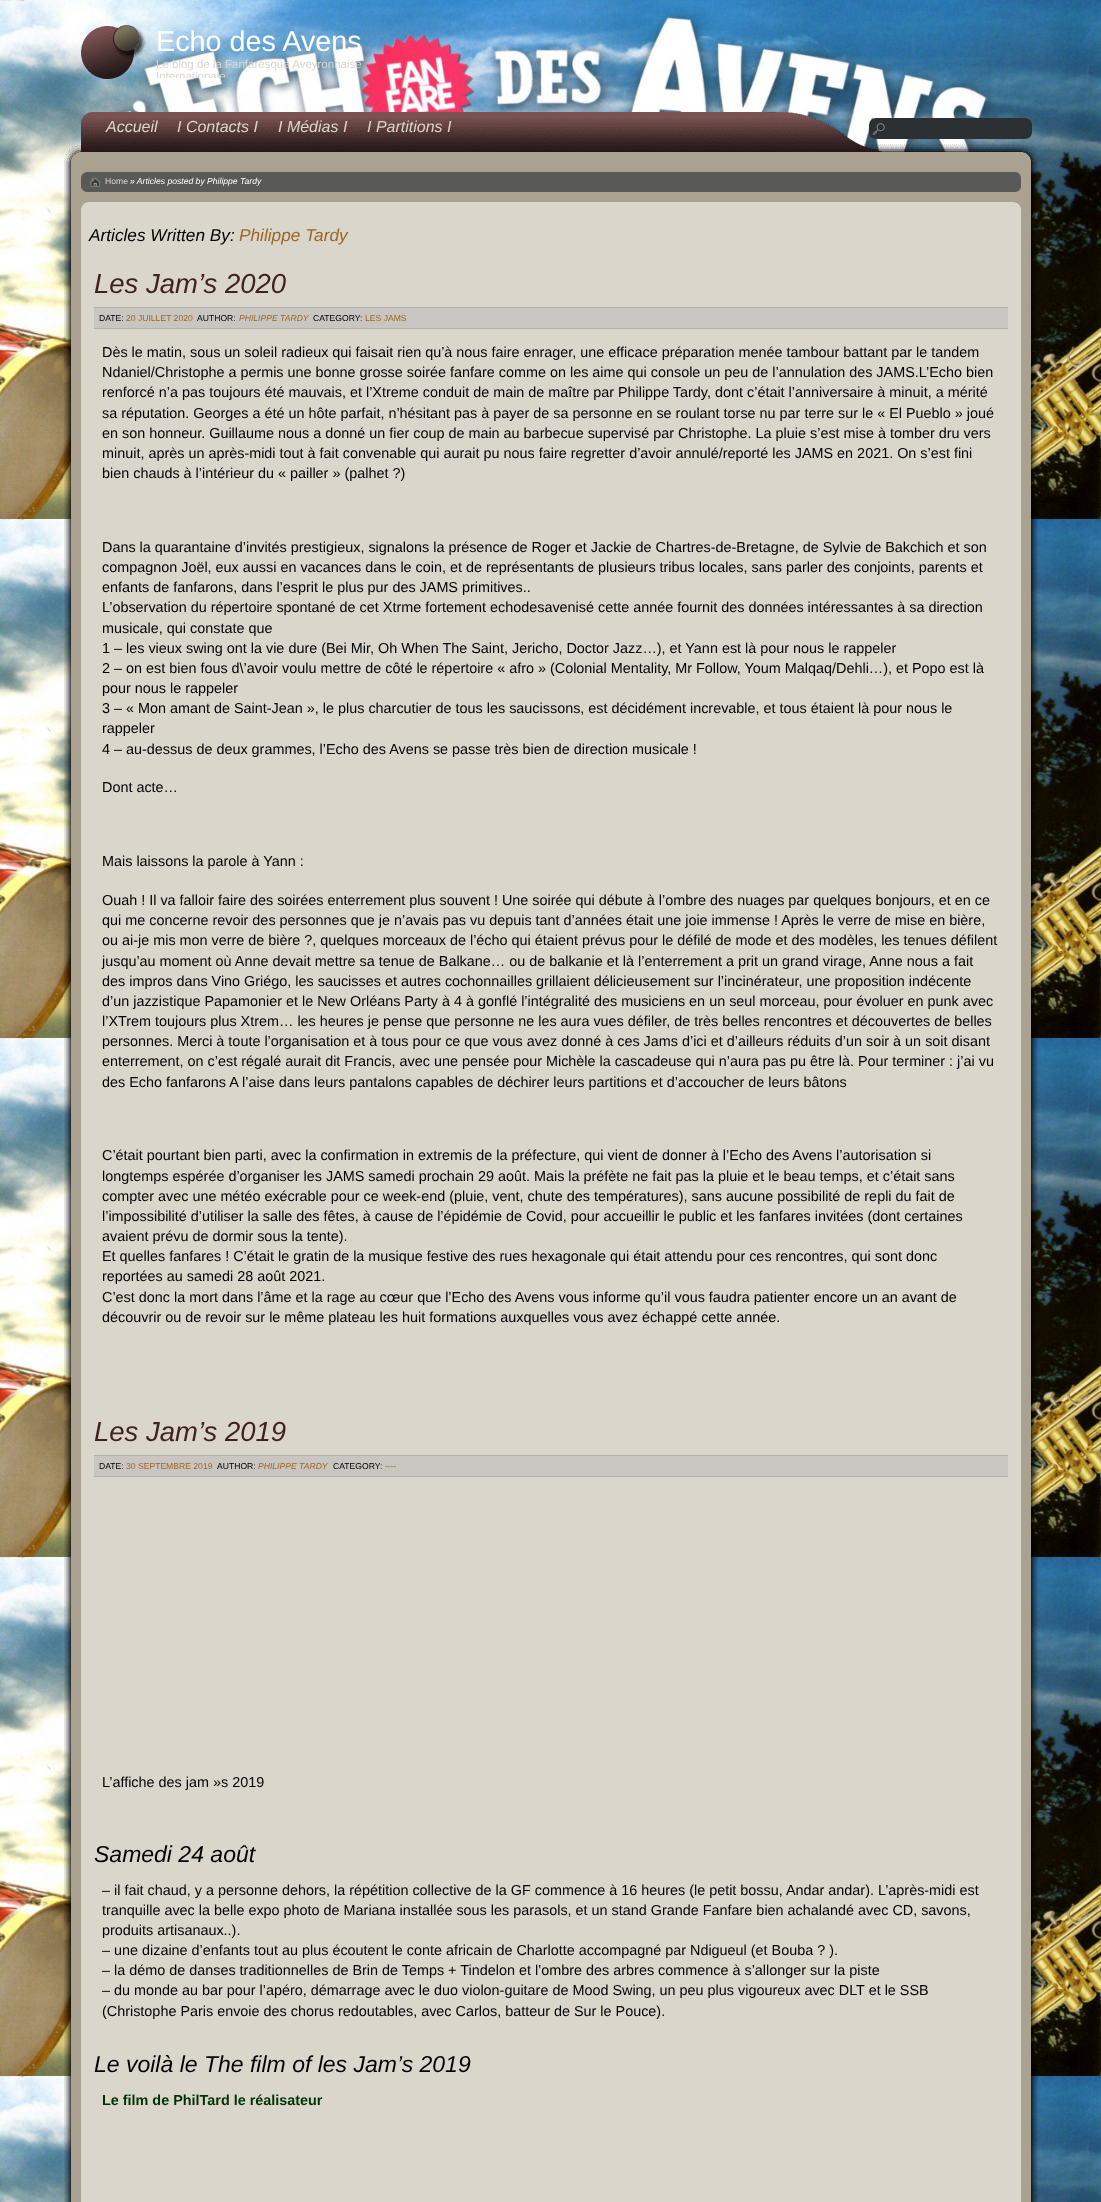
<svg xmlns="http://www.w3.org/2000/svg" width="1101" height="2202">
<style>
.a{font:28.75px Liberation Sans;fill:#fff}
.b{font:11.5px Liberation Sans;fill:#dbd6cc}
.c{font:italic 16px Liberation Sans;fill:#dbd6cc}
.d{font:8.6px Liberation Sans;fill:#dbd6cc}
.e{font:italic 8.6px Liberation Sans;fill:#fff}
.f{font:italic 17.25px Liberation Sans;fill:#000}
.g{font:italic 17.25px Liberation Sans;fill:#9c6722}
.h{font:italic 27.5px Liberation Sans;fill:#402222}
.i{font:8.6px Liberation Sans;fill:#000}
.j{font:8.6px Liberation Sans;fill:#9c6722}
.k{font:italic 8.6px Liberation Sans;fill:#9c6722}
.l{font:14.4px Liberation Sans;fill:#000}
.m{font:italic 23px Liberation Sans;fill:#000}
.n{font:bold 14.4px Liberation Sans;fill:#030}
</style>
<defs>
<clipPath id="clip1"><path d="M156 58h245v20H156z"/></clipPath>
</defs>
<rect width="100%" height="100%" fill="#fff"/>
<image href="1.png" x="0" y="0" width="1101" height="2202"/>
<image href="2.png" x="81" y="25" width="66" height="54"/>
<image href="3.png" x="64" y="112" width="974" height="50"/>
<rect fill="#2c3033" x="869" y="118" width="163" height="21" rx="7"/>
<image href="4.png" x="872" y="123" width="13" height="13"/>
<image href="5.png" x="64" y="162" width="974" height="2040"/>
<path fill="#595a58" d="M101 172h915v20H101z"/>
<image href="6.png" x="81" y="172" width="20" height="20"/>
<image href="7.png" x="1016" y="172" width="5" height="20"/>
<path fill="#dbd6cc" d="M81 208h940v1994H81z"/>
<image href="8.png" x="81" y="202" width="940" height="6"/>
<path fill="#c9c6c1" d="M94 308h914v20H94z"/>
<path fill="#b2b0ab" d="M94 307h914v1H94z"/>
<path fill="#b2b0ab" d="M94 328h914v1H94z"/>
<path fill="#c9c6c1" d="M94 1456h914v20H94z"/>
<path fill="#b2b0ab" d="M94 1455h914v1H94z"/>
<path fill="#b2b0ab" d="M94 1476h914v1H94z"/>
<text class="a" x="156" y="51">Echo des Avens</text>
<text class="b" x="156" y="68">Le blog de la Fanfaresque Aveyronnaise</text>
<g clip-path="url(#clip1)">
<text class="b" x="156" y="80">Internationale</text>
</g>
<text class="c" x="106" y="132">Accueil</text>
<text class="c" x="177" y="132">I Contacts I</text>
<text class="c" x="278" y="132">I Médias I</text>
<text class="c" x="367" y="132">I Partitions I</text>
<text class="d" x="105" y="184">Home</text>
<text class="e" x="130" y="184">» Articles posted by Philippe Tardy</text>
<text class="f" x="89" y="241">Articles Written By:</text>
<text class="g" x="239" y="241">Philippe Tardy</text>
<text class="h" x="94" y="293">Les Jam’s 2020</text>
<text class="i" x="99" y="321">DATE:</text>
<text class="j" x="126" y="321">20 JUILLET 2020</text>
<text class="i" x="197" y="321">AUTHOR:</text>
<text class="k" x="239" y="321">PHILIPPE TARDY</text>
<text class="i" x="313" y="321">CATEGORY:</text>
<text class="j" x="365" y="321">LES JAMS</text>
<text class="l" x="102" y="357">Dès le matin, sous un soleil radieux qui faisait rien qu’à nous faire enrager, une efficace préparation menée tambour battant par le tandem</text>
<text class="l" x="102" y="377">Ndaniel/Christophe a permis une bonne grosse soirée fanfare comme on les aime qui console un peu de l’annulation des JAMS.L’Echo bien</text>
<text class="l" x="102" y="397">renforcé n’a pas toujours été mauvais, et l’Xtreme conduit de main de maître par Philippe Tardy, dont c’était l’anniversaire à minuit, a mérité</text>
<text class="l" x="102" y="418">sa réputation. Georges a été un hôte parfait, n’hésitant pas à payer de sa personne en se roulant torse nu par terre sur le « El Pueblo » joué</text>
<text class="l" x="102" y="438">en son honneur. Guillaume nous a donné un fier coup de main au barbecue supervisé par Christophe. La pluie s’est mise à tomber dru vers</text>
<text class="l" x="102" y="458">minuit, après un après-midi tout à fait convenable qui aurait pu nous faire regretter d’avoir annulé/reporté les JAMS en 2021. On s’est fini</text>
<text class="l" x="102" y="478">bien chauds à l’intérieur du « pailler » (palhet ?)</text>
<text class="l" x="102" y="552">Dans la quarantaine d’invités prestigieux, signalons la présence de Roger et Jackie de Chartres-de-Bretagne, de Sylvie de Bakchich et son</text>
<text class="l" x="102" y="572">compagnon Joël, eux aussi en vacances dans le coin, et de représentants de plusieurs tribus locales, sans parler des conjoints, parents et</text>
<text class="l" x="102" y="592">enfants de fanfarons, dans l’esprit le plus pur des JAMS primitives..</text>
<text class="l" x="102" y="612">L’observation du répertoire spontané de cet Xtrme fortement echodesavenisé cette année fournit des données intéressantes à sa direction</text>
<text class="l" x="102" y="633">musicale, qui constate que</text>
<text class="l" x="102" y="653">1 – les vieux swing ont la vie dure (Bei Mir, Oh When The Saint, Jericho, Doctor Jazz…), et Yann est là pour nous le rappeler</text>
<text class="l" x="102" y="673">2 – on est bien fous d\’avoir voulu mettre de côté le répertoire « afro » (Colonial Mentality, Mr Follow, Youm Malqaq/Dehli…), et Popo est là</text>
<text class="l" x="102" y="693">pour nous le rappeler</text>
<text class="l" x="102" y="713">3 – « Mon amant de Saint-Jean », le plus charcutier de tous les saucissons, est décidément increvable, et tous étaient là pour nous le</text>
<text class="l" x="102" y="733">rappeler</text>
<text class="l" x="102" y="754">4 – au-dessus de deux grammes, l’Echo des Avens se passe très bien de direction musicale !</text>
<text class="l" x="102" y="792">Dont acte…</text>
<text class="l" x="102" y="866">Mais laissons la parole à Yann :</text>
<text class="l" x="102" y="905">Ouah ! Il va falloir faire des soirées enterrement plus souvent ! Une soirée qui débute à l’ombre des nuages par quelques bonjours, et en ce</text>
<text class="l" x="102" y="925">qui me concerne revoir des personnes que je n’avais pas vu depuis tant d’années était une joie immense ! Après le verre de mise en bière,</text>
<text class="l" x="102" y="945">ou ai-je mis mon verre de bière ?, quelques morceaux de l’écho qui étaient prévus pour le défilé de mode et des modèles, les tenues défilent</text>
<text class="l" x="102" y="966">jusqu’au moment où Anne devait mettre sa tenue de Balkane… ou de balkanie et là l’enterrement a prit un grand virage, Anne nous a fait</text>
<text class="l" x="102" y="986">des impros dans Vino Griégo, les saucisses et autres cochonnailles grillaient délicieusement sur l’incinérateur, une proposition indécente</text>
<text class="l" x="102" y="1006">d’un jazzistique Papamonier et le New Orléans Party à 4 à gonflé l’intégralité des musiciens en un seul morceau, pour évoluer en punk avec</text>
<text class="l" x="102" y="1026">l’XTrem toujours plus Xtrem… les heures je pense que personne ne les aura vues défiler, de très belles rencontres et découvertes de belles</text>
<text class="l" x="102" y="1046">personnes. Merci à toute l’organisation et à tous pour ce que vous avez donné à ces Jams d’ici et d’ailleurs réduits d’un soir à un soit disant</text>
<text class="l" x="102" y="1066">enterrement, on c’est régalé aurait dit Francis, avec une pensée pour Michèle la cascadeuse qui n’aura pas pu être là. Pour terminer : j’ai vu</text>
<text class="l" x="102" y="1087">des Echo fanfarons A l’aise dans leurs pantalons capables de déchirer leurs partitions et d’accoucher de leurs bâtons</text>
<text class="l" x="102" y="1160">C’était pourtant bien parti, avec la confirmation in extremis de la préfecture, qui vient de donner à l’Echo des Avens l’autorisation si</text>
<text class="l" x="102" y="1181">longtemps espérée d’organiser les JAMS samedi prochain 29 août. Mais la préfète ne fait pas la pluie et le beau temps, et c’était sans</text>
<text class="l" x="102" y="1201">compter avec une météo exécrable pour ce week-end (pluie, vent, chute des températures), sans aucune possibilité de repli du fait de</text>
<text class="l" x="102" y="1221">l’impossibilité d’utiliser la salle des fêtes, à cause de l’épidémie de Covid, pour accueillir le public et les fanfares invitées (dont certaines</text>
<text class="l" x="102" y="1241">avaient prévu de dormir sous la tente).</text>
<text class="l" x="102" y="1261">Et quelles fanfares ! C’était le gratin de la musique festive des rues hexagonale qui était attendu pour ces rencontres, qui sont donc</text>
<text class="l" x="102" y="1281">reportées au samedi 28 août 2021.</text>
<text class="l" x="102" y="1302">C’est donc la mort dans l’âme et la rage au cœur que l’Echo des Avens vous informe qu’il vous faudra patienter encore un an avant de</text>
<text class="l" x="102" y="1322">découvrir ou de revoir sur le même plateau les huit formations auxquelles vous avez échappé cette année.</text>
<text class="h" x="94" y="1441">Les Jam’s 2019</text>
<text class="i" x="99" y="1469">DATE:</text>
<text class="j" x="126" y="1469">30 SEPTEMBRE 2019</text>
<text class="i" x="217" y="1469">AUTHOR:</text>
<text class="k" x="258" y="1469">PHILIPPE TARDY</text>
<text class="i" x="333" y="1469">CATEGORY:</text>
<text class="j" x="385" y="1469">----</text>
<text class="l" x="102" y="1787">L’affiche des jam »s 2019</text>
<text class="m" x="94" y="1862">Samedi 24 août</text>
<text class="l" x="102" y="1895">– il fait chaud, y a personne dehors, la répétition collective de la GF commence à 16 heures (le petit bossu, Andar andar). L’après-midi est</text>
<text class="l" x="102" y="1915">tranquille avec la belle expo photo de Mariana installée sous les parasols, et un stand Grande Fanfare bien achalandé avec CD, savons,</text>
<text class="l" x="102" y="1935">produits artisanaux..).</text>
<text class="l" x="102" y="1955">– une dizaine d’enfants tout au plus écoutent le conte africain de Charlotte accompagné par Ndigueul (et Bouba ? ).</text>
<text class="l" x="102" y="1975">– la démo de danses traditionnelles de Brin de Temps + Tindelon et l’ombre des arbres commence à s’allonger sur la piste</text>
<text class="l" x="102" y="1995">– du monde au bar pour l’apéro, démarrage avec le duo violon-guitare de Mood Swing, un peu plus vigoureux avec DLT et le SSB</text>
<text class="l" x="102" y="2016">(Christophe Paris envoie des chorus redoutables, avec Carlos, batteur de Sur le Pouce).</text>
<text class="m" x="94" y="2072">Le voilà le The film of les Jam’s 2019</text>
<text class="n" x="102" y="2105">Le film de PhilTard le réalisateur</text>
</svg>
